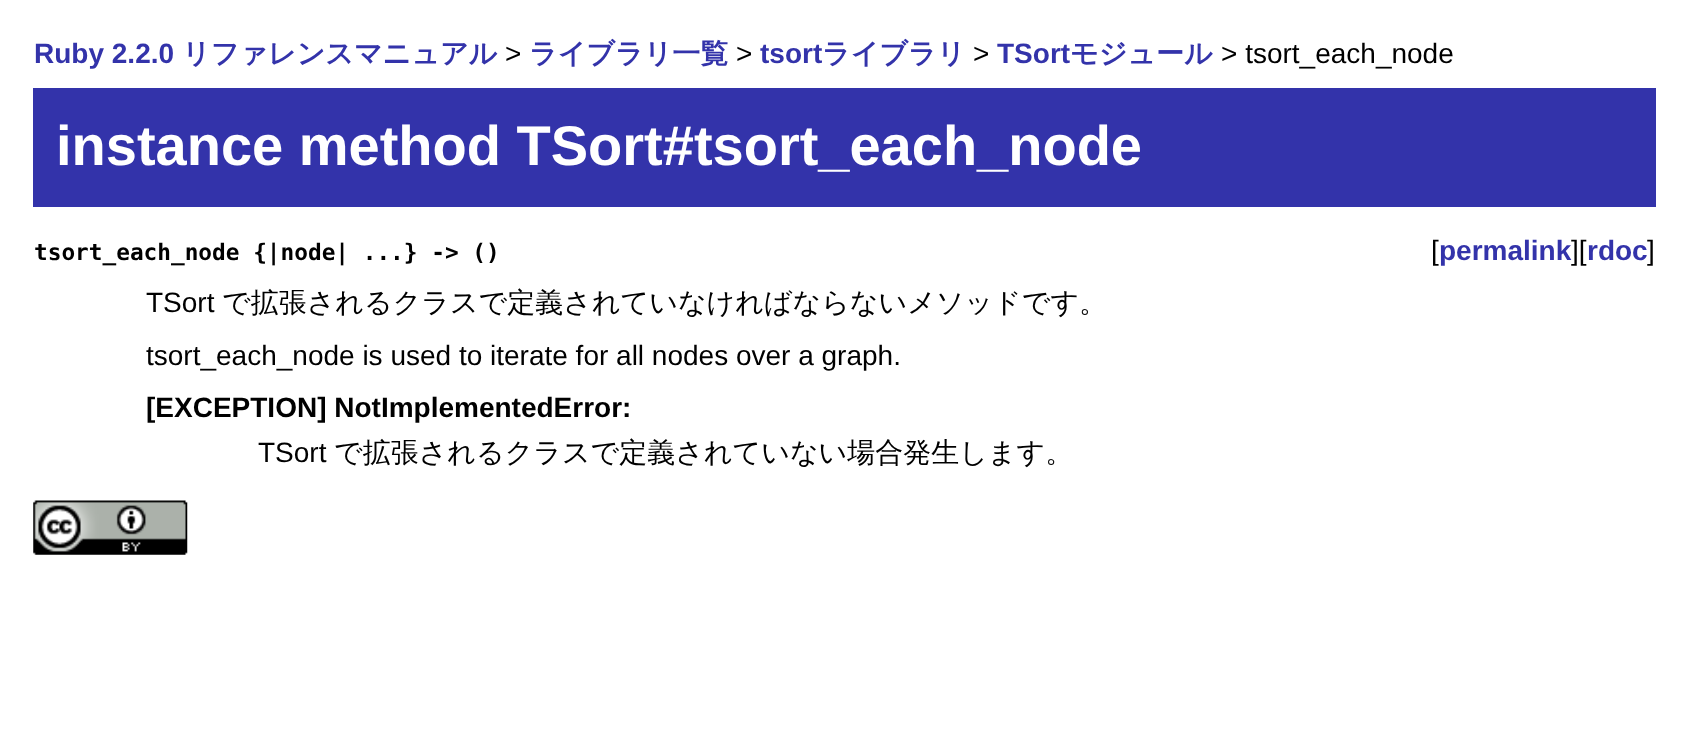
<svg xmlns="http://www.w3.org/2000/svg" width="1688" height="747">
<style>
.a{font:bold 28px Liberation Sans;fill:#33a}
.b{font:bold 28px WenQuanYi Zen Hei;fill:#33a}
.c{font:28px Liberation Sans;fill:#000}
.d{font:bold 56px Liberation Sans;fill:#fff}
.e{font:bold 22.75px DejaVu Sans Mono;fill:#000}
.f{font:500 28px WenQuanYi Zen Hei;fill:#000}
.g{font:bold 28px Liberation Sans;fill:#000}
</style>
<rect width="100%" height="100%" fill="#fff"/>
<path fill="#33a" d="M33 88h1623v119H33z"/>
<image href="1.png" x="33" y="500" width="155" height="55"/>
<text class="a" x="34" y="63">Ruby 2.2.0</text>
<text class="b" x="182" y="63">リファレンスマニュアル</text>
<text class="c" x="505" y="63">&gt;</text>
<text class="b" x="529" y="63">ライブラリ一覧</text>
<text class="c" x="736" y="63">&gt;</text>
<text class="a" x="760" y="63">tsort</text>
<text class="b" x="822" y="63">ライブラリ</text>
<text class="c" x="973" y="63">&gt;</text>
<text class="a" x="997" y="63">TSort</text>
<text class="b" x="1070" y="63">モジュール</text>
<text class="c" x="1221" y="63">&gt; tsort_each_node</text>
<text class="d" x="56" y="165">instance method TSort#tsort_each_node</text>
<text class="e" x="34" y="260">tsort_each_node {|node| ...} -&gt; ()</text>
<text class="c" x="1431" y="260">[</text>
<text class="a" x="1439" y="260">permalink</text>
<text class="c" x="1571" y="260">][</text>
<text class="a" x="1587" y="260">rdoc</text>
<text class="c" x="1647" y="260">]</text>
<text class="c" x="146" y="312">TSort</text>
<text class="f" x="222" y="312">で拡張されるクラスで定義されていなければならないメソッドです。</text>
<text class="c" x="146" y="365">tsort_each_node is used to iterate for all nodes over a graph.</text>
<text class="g" x="146" y="417">[EXCEPTION] NotImplementedError:</text>
<text class="c" x="258" y="462">TSort</text>
<text class="f" x="334" y="462">で拡張されるクラスで定義されていない場合発生します。</text>
</svg>
